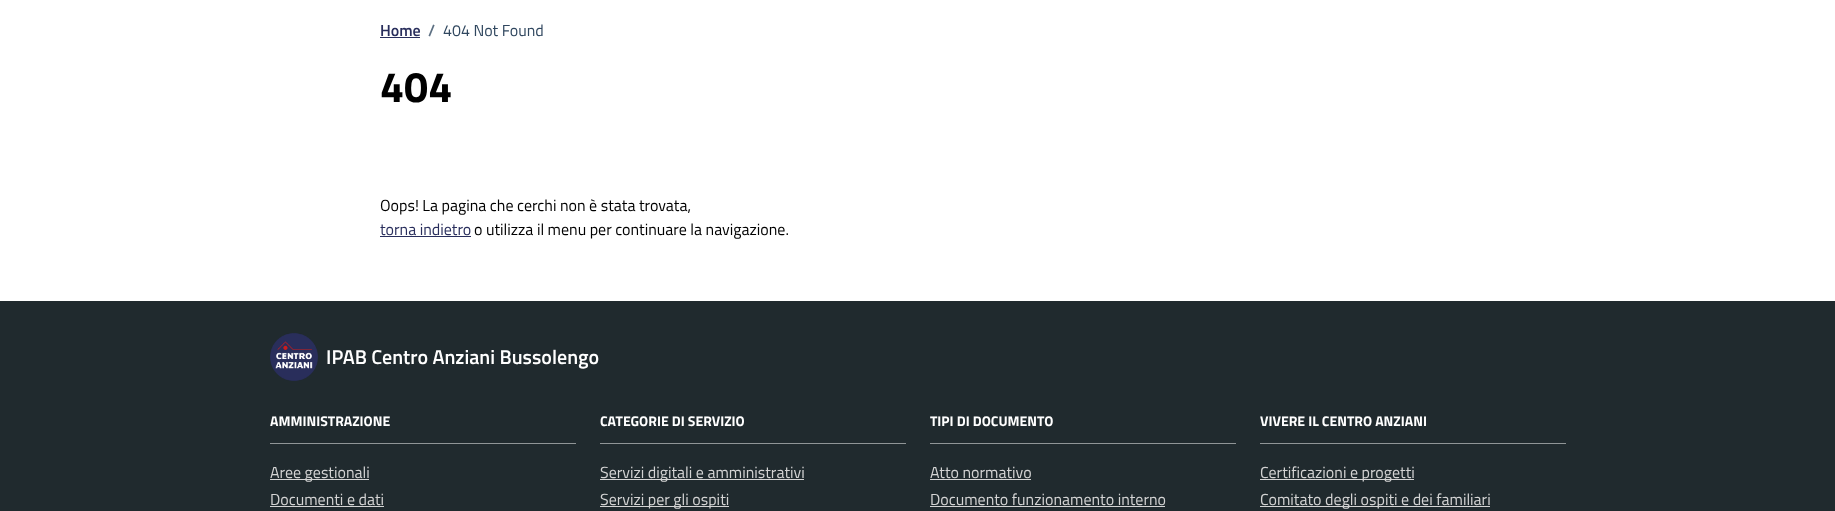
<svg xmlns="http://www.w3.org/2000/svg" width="1835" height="511">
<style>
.a{font:600 16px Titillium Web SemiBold;fill:#292e5c}
.b{font:600 16px Titillium Web SemiBold;fill:#5d7083}
.c{font:16px Titillium Web;fill:#30475f}
.d{font:bold 43px Titillium Web;fill:#000}
.e{font:16px Titillium Web;fill:#000}
.f{font:16px Titillium Web;fill:#292e5c}
.g{font:600 20px Titillium Web SemiBold;fill:#fff}
.h{font:bold 14px Titillium Web;fill:#fff}
.i{font:16px Titillium Web;fill:#d4d4d4}
</style>
<rect width="100%" height="100%" fill="#fff"/>
<path fill="#292e5c" d="M380 37h40v1H380z"/>
<path fill="#292e5c" d="M380 236h91v1H380z"/>
<path fill="#202a2e" d="M0 301h1835v210H0z"/>
<image href="1.png" x="270" y="333" width="48" height="48"/>
<path fill="#909597" d="M270 443h306v1H270z"/>
<path fill="#d4d4d4" d="M270 479h99v1H270z"/>
<path fill="#d4d4d4" d="M270 506h114v1H270z"/>
<path fill="#909597" d="M600 443h306v1H600z"/>
<path fill="#d4d4d4" d="M600 479h204v1H600z"/>
<path fill="#d4d4d4" d="M600 506h129v1H600z"/>
<path fill="#909597" d="M930 443h306v1H930z"/>
<path fill="#d4d4d4" d="M930 479h101v1H930z"/>
<path fill="#d4d4d4" d="M930 506h235v1H930z"/>
<path fill="#909597" d="M1260 443h306v1H1260z"/>
<path fill="#d4d4d4" d="M1260 479h154v1H1260z"/>
<path fill="#d4d4d4" d="M1260 506h230v1H1260z"/>
<text class="a" x="380" y="36">Home</text>
<text class="b" x="428" y="36">/</text>
<text class="c" x="443" y="36">404 Not Found</text>
<text class="d" x="380" y="102">404</text>
<text class="e" x="380" y="211">Oops! La pagina che cerchi non è stata trovata,</text>
<text class="f" x="380" y="235">torna indietro</text>
<text class="e" x="474" y="235">o utilizza il menu per continuare la navigazione.</text>
<text class="g" x="326" y="364">IPAB Centro Anziani Bussolengo</text>
<text class="h" x="270" y="426">AMMINISTRAZIONE</text>
<text class="i" x="270" y="478">Aree gestionali</text>
<text class="i" x="270" y="505">Documenti e dati</text>
<text class="h" x="600" y="426">CATEGORIE DI SERVIZIO</text>
<text class="i" x="600" y="478">Servizi digitali e amministrativi</text>
<text class="i" x="600" y="505">Servizi per gli ospiti</text>
<text class="h" x="930" y="426">TIPI DI DOCUMENTO</text>
<text class="i" x="930" y="478">Atto normativo</text>
<text class="i" x="930" y="505">Documento funzionamento interno</text>
<text class="h" x="1260" y="426">VIVERE IL CENTRO ANZIANI</text>
<text class="i" x="1260" y="478">Certificazioni e progetti</text>
<text class="i" x="1260" y="505">Comitato degli ospiti e dei familiari</text>
</svg>
